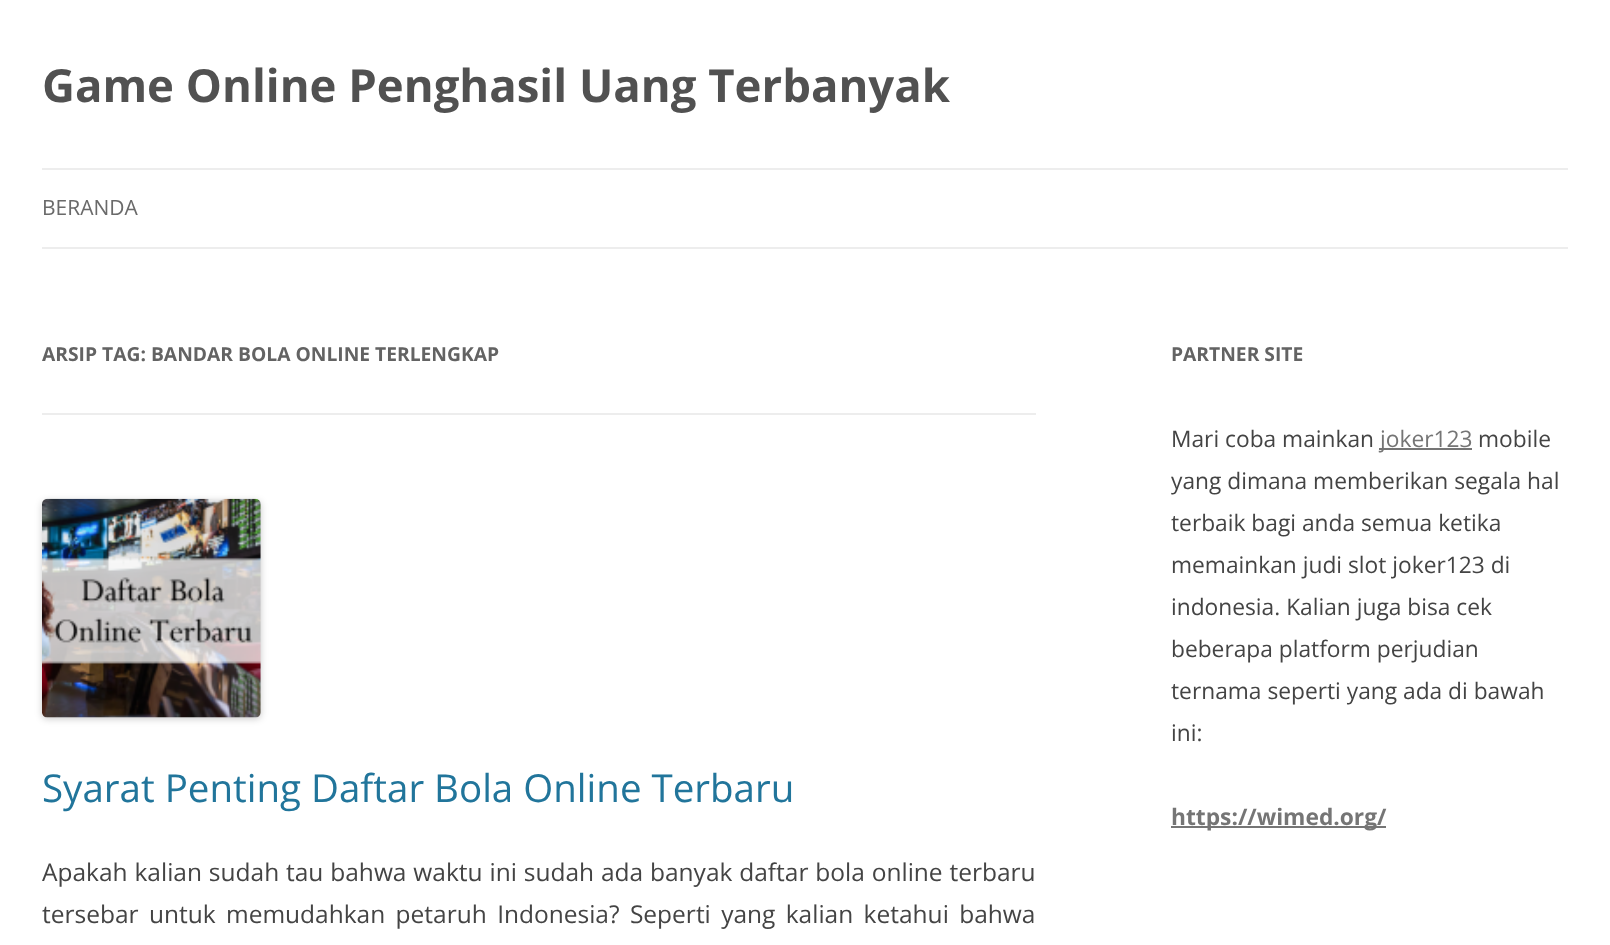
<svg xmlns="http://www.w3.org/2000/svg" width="1610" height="945">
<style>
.a{font:bold 45.5px Open Sans;fill:#515151}
.b{font:21px Open Sans;fill:#6a6a6a}
.c{font:bold 19.25px Open Sans;fill:#636363}
.d{font:38.5px Open Sans;fill:#21759b}
.e{font:24.5px Open Sans;fill:#444}
.f{font:22.75px Open Sans;fill:#444}
.g{font:22.75px Open Sans;fill:#757575}
.h{font:bold 22.75px Open Sans;fill:#757575}
</style>
<rect width="100%" height="100%" fill="#fff"/>
<path fill="#ededed" d="M42 168h1526v2H42z"/>
<path fill="#ededed" d="M42 247h1526v2H42z"/>
<path fill="#ededed" d="M42 413h994v2H42z"/>
<rect fill="#00000033" filter="blur(3.5px)" x="42" y="501" width="219" height="218" rx="5"/>
<image href="1.png" x="42" y="498" width="219" height="220"/>
<path fill="#757575" d="M1379 448h93v2H1379z"/>
<path fill="#757575" d="M1171 826h215v2H1171z"/>
<text class="a" x="42" y="102">Game Online Penghasil Uang Terbanyak</text>
<text class="b" x="42" y="215">BERANDA</text>
<text class="c" x="42" y="361">ARSIP TAG: BANDAR BOLA ONLINE TERLENGKAP</text>
<text class="d" x="42" y="802">Syarat Penting Daftar Bola Online Terbaru</text>
<text class="e" x="42" y="881" word-spacing="0.5">Apakah kalian sudah tau bahwa waktu ini sudah ada banyak daftar bola online terbaru</text>
<text class="e" x="42" y="923" word-spacing="4">tersebar untuk memudahkan petaruh Indonesia? Seperti yang kalian ketahui bahwa</text>
<text class="c" x="1171" y="361">PARTNER SITE</text>
<text class="f" x="1171" y="447">Mari coba mainkan</text>
<text class="g" x="1380" y="447">joker123</text>
<text class="f" x="1478" y="447">mobile</text>
<text class="f" x="1171" y="489">yang dimana memberikan segala hal</text>
<text class="f" x="1171" y="531">terbaik bagi anda semua ketika</text>
<text class="f" x="1171" y="573">memainkan judi slot joker123 di</text>
<text class="f" x="1171" y="615">indonesia. Kalian juga bisa cek</text>
<text class="f" x="1171" y="657">beberapa platform perjudian</text>
<text class="f" x="1171" y="699">ternama seperti yang ada di bawah</text>
<text class="f" x="1171" y="741">ini:</text>
<text class="h" x="1171" y="825">https://wimed.org/</text>
</svg>
